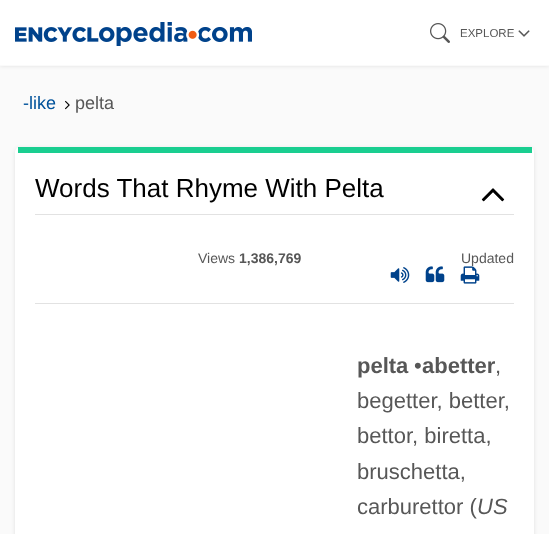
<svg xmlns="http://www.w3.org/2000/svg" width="549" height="534">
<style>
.a{font:11.5px Liberation Sans;fill:#575757}
.b{font:18px Liberation Sans;fill:#00529b}
.c{font:18px Liberation Sans;fill:#575757}
.d{font:26px Liberation Sans;fill:#000}
.e{font:14px Liberation Sans;fill:#575757}
.f{font:bold 14px Liberation Sans;fill:#575757}
.g{font:bold 22px Liberation Sans;fill:#575757}
.h{font:22px Liberation Sans;fill:#575757}
.i{font:italic 22px Liberation Sans;fill:#575757}
</style>
<rect width="100%" height="100%" fill="#fafafa"/>
<path fill="#0000001a" filter="blur(2px)" d="M0 0h549v66H0z"/>
<path fill="#fff" d="M0 0h549v65H0z"/>
<path fill="#fafafa" d="M0 65h549v1H0z"/>
<image href="1.png" x="15" y="22" width="237" height="24"/>
<image href="2.png" x="430" y="23" width="20" height="20"/>
<image href="3.png" x="518" y="30" width="12" height="7"/>
<image href="4.png" x="65" y="100" width="5" height="10"/>
<rect fill="#0000001a" filter="blur(2px)" x="15" y="148" width="519" height="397" rx="5"/>
<rect fill="#fff" x="15" y="147" width="519" height="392" rx="5"/>
<path fill="#1ace90" d="M18 147h514v6H18z"/>
<image href="5.png" x="481" y="188" width="24" height="14"/>
<path fill="#e2e2e2" d="M35 214h479v1H35z"/>
<path fill="#e2e2e2" d="M35 303h479v1H35z"/>
<image href="6.png" x="390" y="267" width="20" height="16"/>
<image href="7.png" x="425" y="266" width="20" height="17"/>
<image href="8.png" x="460" y="266" width="20" height="18"/>
<text class="a" x="460" y="37">EXPLORE</text>
<text class="b" x="23" y="109">-like</text>
<text class="c" x="75" y="109">pelta</text>
<text class="d" x="35" y="197">Words That Rhyme With Pelta</text>
<text class="e" x="198" y="263">Views</text>
<text class="f" x="239" y="263">1,386,769</text>
<text class="e" x="461" y="263">Updated</text>
<text class="g" x="357" y="373">pelta</text>
<text class="h" x="414" y="373">•</text>
<text class="g" x="422" y="373">abetter</text>
<text class="h" x="495" y="373">,</text>
<text class="h" x="357" y="408">begetter, better,</text>
<text class="h" x="357" y="443">bettor, biretta,</text>
<text class="h" x="357" y="479">bruschetta,</text>
<text class="h" x="357" y="514">carburettor (</text>
<text class="i" x="477" y="514">US</text>
</svg>
